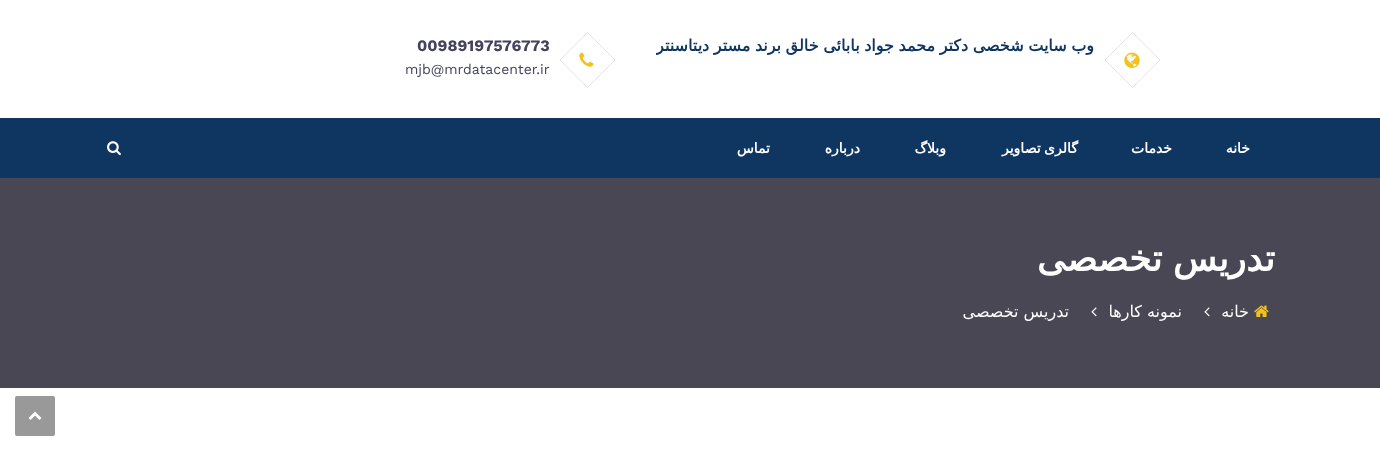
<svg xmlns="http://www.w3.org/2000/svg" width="1380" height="451">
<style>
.a{font:bold 16px DejaVu Sans;direction:rtl;fill:#0f3661}
.b{font:bold 16px Work Sans;fill:#42435d}
.c{font:14px Work Sans;fill:#42435d}
.d{font:bold 14px DejaVu Sans;letter-spacing:0.25px;direction:rtl;fill:#fff}
.e{font:bold 36px DejaVu Sans;direction:rtl;fill:#fff}
.f{font:16px DejaVu Sans;direction:rtl;fill:#fff}
</style>
<defs>
<clipPath id="clip1"><path d="M656 34h438v24H656z"/></clipPath>
</defs>
<rect width="100%" height="100%" fill="#fff"/>
<path fill="none" stroke="#e4e4e6" d="M1132.5 32.5l27.5 27.5l-27.5 27.5l-27.5-27.5z"/>
<image href="1.png" x="1124" y="52" width="16" height="16"/>
<path fill="none" stroke="#e4e4e6" d="M587.5 32.5l27.5 27.5l-27.5 27.5l-27.5-27.5z"/>
<image href="2.png" x="579" y="52" width="15" height="15"/>
<path fill="#0f3661" d="M0 118h1380v60H0z"/>
<image href="3.png" x="107" y="141" width="14" height="15"/>
<path fill="#494754" d="M0 178h1380v210H0z"/>
<image href="4.png" x="1254" y="305" width="15" height="12"/>
<image href="5.png" x="1204" y="307" width="6" height="10"/>
<image href="5.png" x="1091" y="307" width="6" height="10"/>
<rect fill="#999" x="15" y="396" width="40" height="40" rx="2"/>
<image href="6.png" x="28" y="411" width="14" height="9"/>
<g clip-path="url(#clip1)">
<text class="a" x="1094" y="51" word-spacing="-0.5">وب سایت شخصی دکتر محمد جواد بابائی خالق برند مستر دیتاسنتر</text>
</g>
<text class="b" x="417" y="51">00989197576773</text>
<text class="c" x="405" y="74">mjb@mrdatacenter.ir</text>
<text class="d" x="1250" y="153">خانه</text>
<text class="d" x="1172" y="153">خدمات</text>
<text class="d" x="1078" y="153" word-spacing="-1">گالری تصاویر</text>
<text class="d" x="946" y="153">وبلاگ</text>
<text class="d" x="860" y="153">درباره</text>
<text class="d" x="770" y="153">تماس</text>
<text class="e" x="1275" y="271" word-spacing="-1">تدریس تخصصی</text>
<text class="f" x="1249" y="317">خانه</text>
<text class="f" x="1182" y="317">نمونه کارها</text>
<text class="f" x="1069" y="317">تدریس تخصصی</text>
</svg>
